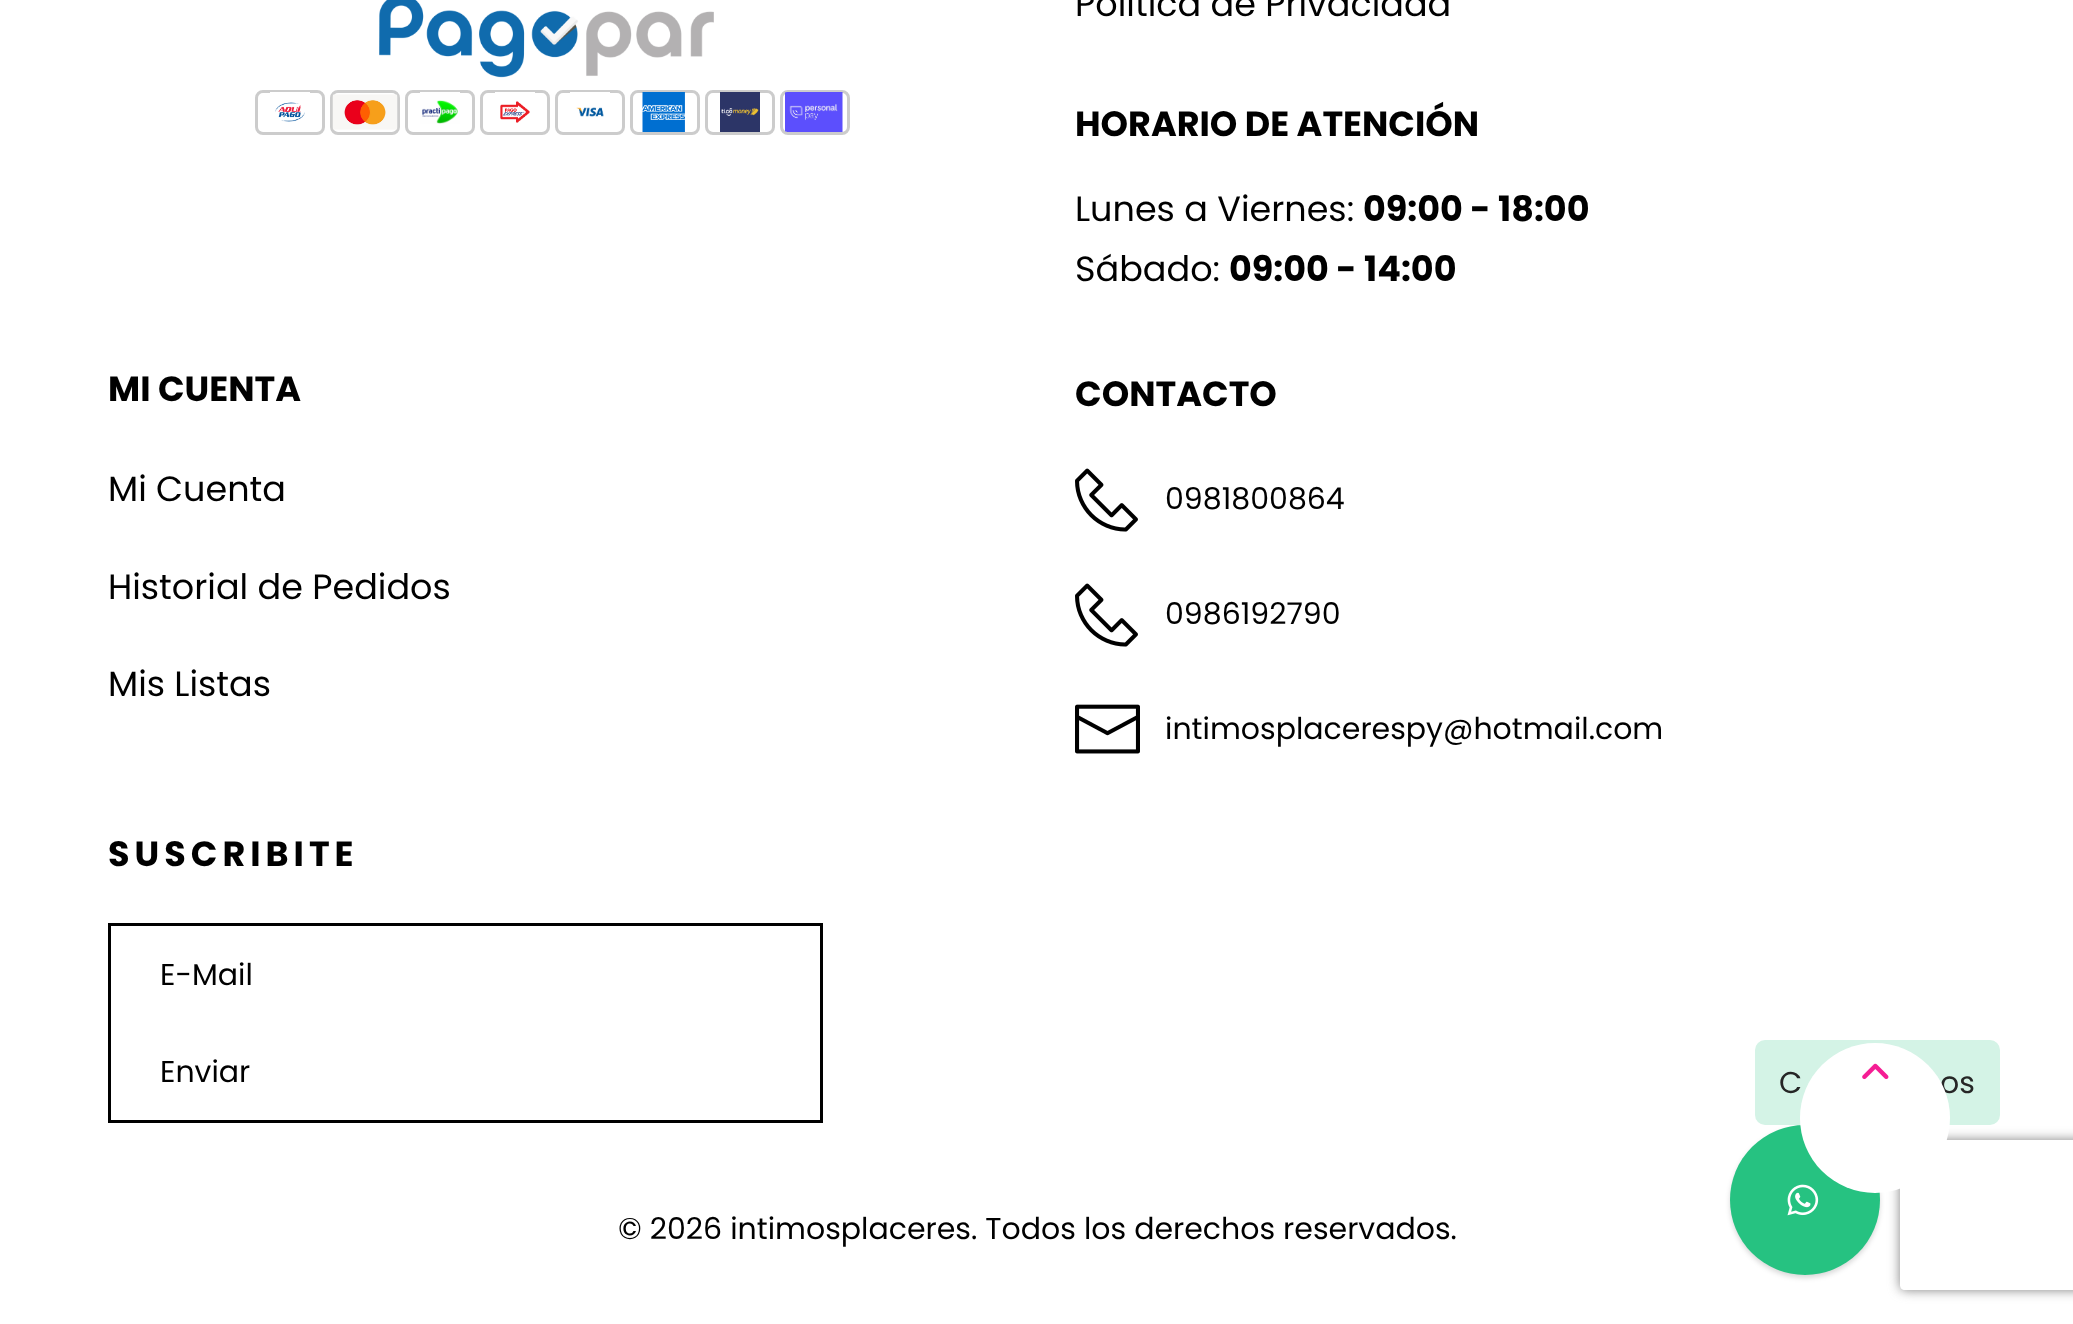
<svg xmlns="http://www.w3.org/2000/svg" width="2073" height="1324">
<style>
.a{font:35px Poppins;fill:#000}
.b{font:bold 35px Poppins;fill:#000}
.c{font:30px Poppins;fill:#000}
.d{font:bold 35px Poppins;letter-spacing:5px;fill:#000}
.e{font:30px Poppins;fill:#262626}
</style>
<defs>
<clipPath id="clip1"><path d="M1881 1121h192v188h-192zm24 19h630c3 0 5 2 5 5v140c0 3-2 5-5 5h-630c-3 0-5-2-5-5v-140c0-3 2-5 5-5z" clip-rule="evenodd"/></clipPath>
</defs>
<rect width="100%" height="100%" fill="#fff"/>
<image href="1.png" x="379" y="0" width="335" height="78"/>
<rect fill="none" stroke="#ccc" stroke-width="3" x="256.5" y="91.5" width="67" height="42" rx="6.5"/>
<image href="2.png" x="270" y="92" width="40" height="30"/>
<rect fill="none" stroke="#ccc" stroke-width="3" x="331.5" y="91.5" width="67" height="42" rx="6.5"/>
<image href="3.png" x="332" y="94" width="66" height="36"/>
<rect fill="none" stroke="#ccc" stroke-width="3" x="406.5" y="91.5" width="67" height="42" rx="6.5"/>
<image href="4.png" x="420" y="92" width="40" height="32"/>
<rect fill="none" stroke="#ccc" stroke-width="3" x="481.5" y="91.5" width="67" height="42" rx="6.5"/>
<image href="5.png" x="495" y="92" width="40" height="31"/>
<rect fill="none" stroke="#ccc" stroke-width="3" x="556.5" y="91.5" width="67" height="42" rx="6.5"/>
<image href="6.png" x="570" y="92" width="40" height="25"/>
<rect fill="none" stroke="#ccc" stroke-width="3" x="631.5" y="91.5" width="67" height="42" rx="6.5"/>
<image href="7.png" x="642" y="92" width="43" height="40"/>
<rect fill="none" stroke="#ccc" stroke-width="3" x="706.5" y="91.5" width="67" height="42" rx="6.5"/>
<image href="8.png" x="720" y="92" width="40" height="40"/>
<rect fill="none" stroke="#ccc" stroke-width="3" x="781.5" y="91.5" width="67" height="42" rx="6.5"/>
<image href="9.png" x="785" y="92" width="58" height="40"/>
<image href="10.png" x="1075" y="468" width="63" height="64"/>
<image href="10.png" x="1075" y="583" width="63" height="64"/>
<image href="11.png" x="1075" y="704" width="65" height="50"/>
<path fill="#000" d="M108 923h715v3H108z"/>
<path fill="#000" d="M820 923h3v200H820z"/>
<path fill="#000" d="M108 923h3v100H108z"/>
<path fill="#000" d="M108 1120h715v3H108z"/>
<path fill="#000" d="M108 1023h3v100H108z"/>
<rect fill="#00000026" filter="blur(2.5px)" x="1730" y="1128" width="150" height="150" rx="75"/>
<g clip-path="url(#clip1)">
<rect fill="#808080" filter="blur(6px)" x="1900" y="1140" width="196" height="150" rx="5"/>
</g>
<rect fill="#d4f3e6" x="1755" y="1040" width="245" height="85" rx="10"/>
<circle fill="#26c281" cx="1805" cy="1200" r="75"/>
<image href="13.png" x="1787" y="1184" width="32" height="32"/>
<text class="a" x="1075" y="16">Política de Privacidad</text>
<text class="b" x="1075" y="136">HORARIO DE ATENCIÓN</text>
<text class="a" x="1075" y="221">Lunes a Viernes:</text>
<text class="b" x="1363" y="221">09:00 - 18:00</text>
<text class="a" x="1075" y="281">Sábado:</text>
<text class="b" x="1229" y="281">09:00 - 14:00</text>
<text class="b" x="108" y="401">MI CUENTA</text>
<text class="a" x="108" y="501">Mi Cuenta</text>
<text class="a" x="108" y="599">Historial de Pedidos</text>
<text class="a" x="108" y="696">Mis Listas</text>
<text class="b" x="1075" y="406">CONTACTO</text>
<text class="c" x="1165" y="509">0981800864</text>
<text class="c" x="1165" y="624">0986192790</text>
<text class="c" x="1165" y="739">intimosplacerespy@hotmail.com</text>
<text class="d" x="108" y="866">SUSCRIBITE</text>
<text class="c" x="160" y="985">E-Mail</text>
<text class="c" x="160" y="1082">Enviar</text>
<text class="c" x="618" y="1239">© 2026 intimosplaceres. Todos los derechos reservados.</text>
<text class="e" x="1779" y="1093">C</text>
<text class="e" x="1940" y="1093">os</text>
<circle fill="#fff" cx="1875" cy="1118" r="75"/>
<image href="12.png" x="1862" y="1063" width="27" height="17"/>
</svg>
